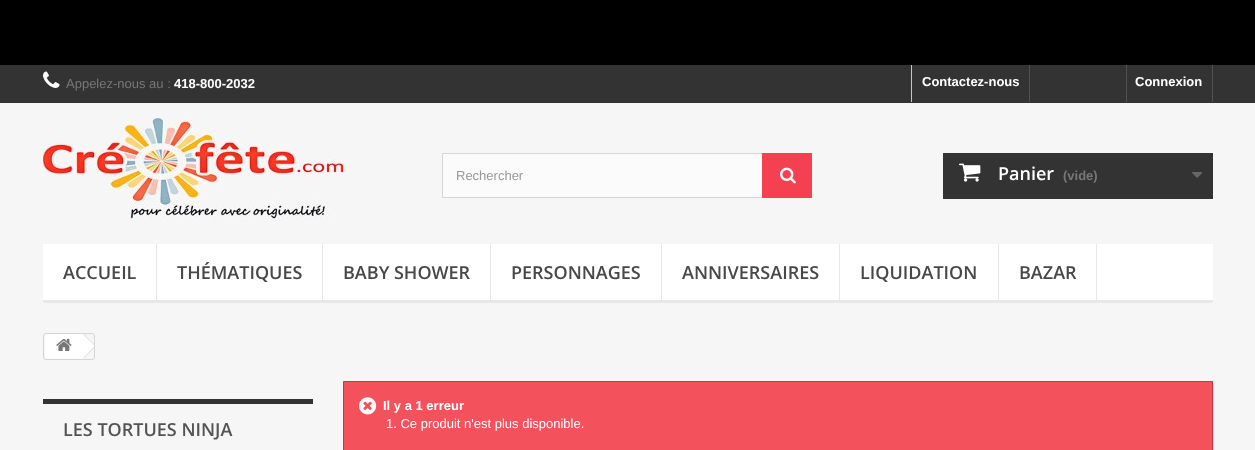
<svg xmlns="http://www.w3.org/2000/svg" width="1255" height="450">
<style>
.a{font:13px Liberation Sans;fill:#777}
.b{font:bold 13px Liberation Sans;fill:#fff}
.c{font:13px Liberation Sans;fill:#999}
.d{font:600 18px Open Sans;fill:#fff}
.e{font:bold 13px Liberation Sans;fill:#777}
.f{font:600 18px Open Sans;fill:#484848}
.g{font:600 18px Open Sans;fill:#555454}
.h{font:13px Liberation Sans;fill:#fff}
</style>
<rect width="100%" height="100%" fill="#f6f6f6"/>
<path fill="#000" d="M0 0h1255v65H0z"/>
<path fill="#333" d="M0 65h1255v38H0z"/>
<image href="1.png" x="43" y="71" width="17" height="17"/>
<path fill="#c6c6c6" d="M911 65h1v37H911z"/>
<path fill="#515151" d="M1029 65h1v37H1029z"/>
<path fill="#515151" d="M1212 65h1v37H1212z"/>
<path fill="#515151" d="M1126 65h1v37H1126z"/>
<image href="2.png" x="43" y="118" width="300" height="101"/>
<path fill="#fbfbfb" d="M443 154h319v43H443z"/>
<path fill="none" stroke="#d6d4d4" d="M442.5 153.5h369v44H442.5z"/>
<path fill="#f44051" d="M762 153h50v45H762z"/>
<image href="3.png" x="780" y="167" width="16" height="17"/>
<path fill="#333" d="M943 153h270v46H943z"/>
<image href="4.png" x="959" y="163" width="22" height="19"/>
<image href="5.png" x="1192" y="172" width="11" height="6"/>
<path fill="#fff" d="M43 244h1170v56H43z"/>
<path fill="#e8e8e8" d="M43 300h1170v3H43z"/>
<path fill="#e8e8e8" d="M156 244h1v59H156z"/>
<path fill="#e8e8e8" d="M322 244h1v59H322z"/>
<path fill="#e8e8e8" d="M490 244h1v59H490z"/>
<path fill="#e8e8e8" d="M661 244h1v59H661z"/>
<path fill="#e8e8e8" d="M839 244h1v59H839z"/>
<path fill="#e8e8e8" d="M998 244h1v59H998z"/>
<path fill="#e8e8e8" d="M1096 244h1v59H1096z"/>
<rect fill="none" stroke="#d6d4d4" x="43.5" y="333.5" width="51" height="26" rx="2.5"/>
<path fill="#fff" d="M48 334h35v25h-35c-1.5 0-3-1.5-3-3v-19c0-1.5 1.5-3 3-3z"/>
<path fill="#fff" d="M85 334.5l9 9v5l-9 9c-1 .5-2 .5-3 0l-10-10c-.5-1-.5-2 0-3l10-10c1-.5 2-.5 3 0z"/>
<image href="6.png" x="56" y="338" width="16" height="13"/>
<path fill="#d6d4d4" d="M84 334l10 10v1l-10.5-10.5zm10 13v1l-10 10l-.5-.5z"/>
<path fill="#333" d="M43 399h270v5H43z"/>
<path fill="#f3515c" stroke="#d4323d" d="M343.5 381.5h869v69H343.5z"/>
<image href="7.png" x="359" y="397" width="18" height="18"/>
<text class="a" x="66" y="88">Appelez-nous au :</text>
<text class="b" x="174" y="88">418-800-2032</text>
<text class="b" x="922" y="86">Contactez-nous</text>
<text class="b" x="1135" y="86">Connexion</text>
<text class="c" x="456" y="180">Rechercher</text>
<text class="d" x="998" y="180">Panier</text>
<text class="e" x="1063" y="180">(vide)</text>
<text class="f" x="63" y="279">ACCUEIL</text>
<text class="f" x="177" y="279">THÉMATIQUES</text>
<text class="f" x="343" y="279">BABY SHOWER</text>
<text class="f" x="511" y="279">PERSONNAGES</text>
<text class="f" x="682" y="279">ANNIVERSAIRES</text>
<text class="f" x="860" y="279">LIQUIDATION</text>
<text class="f" x="1019" y="279">BAZAR</text>
<text class="g" x="63" y="436">LES TORTUES NINJA</text>
<text class="b" x="383" y="410">Il y a 1 erreur</text>
<text class="h" x="386" y="428">1. Ce produit n'est plus disponible.</text>
</svg>
